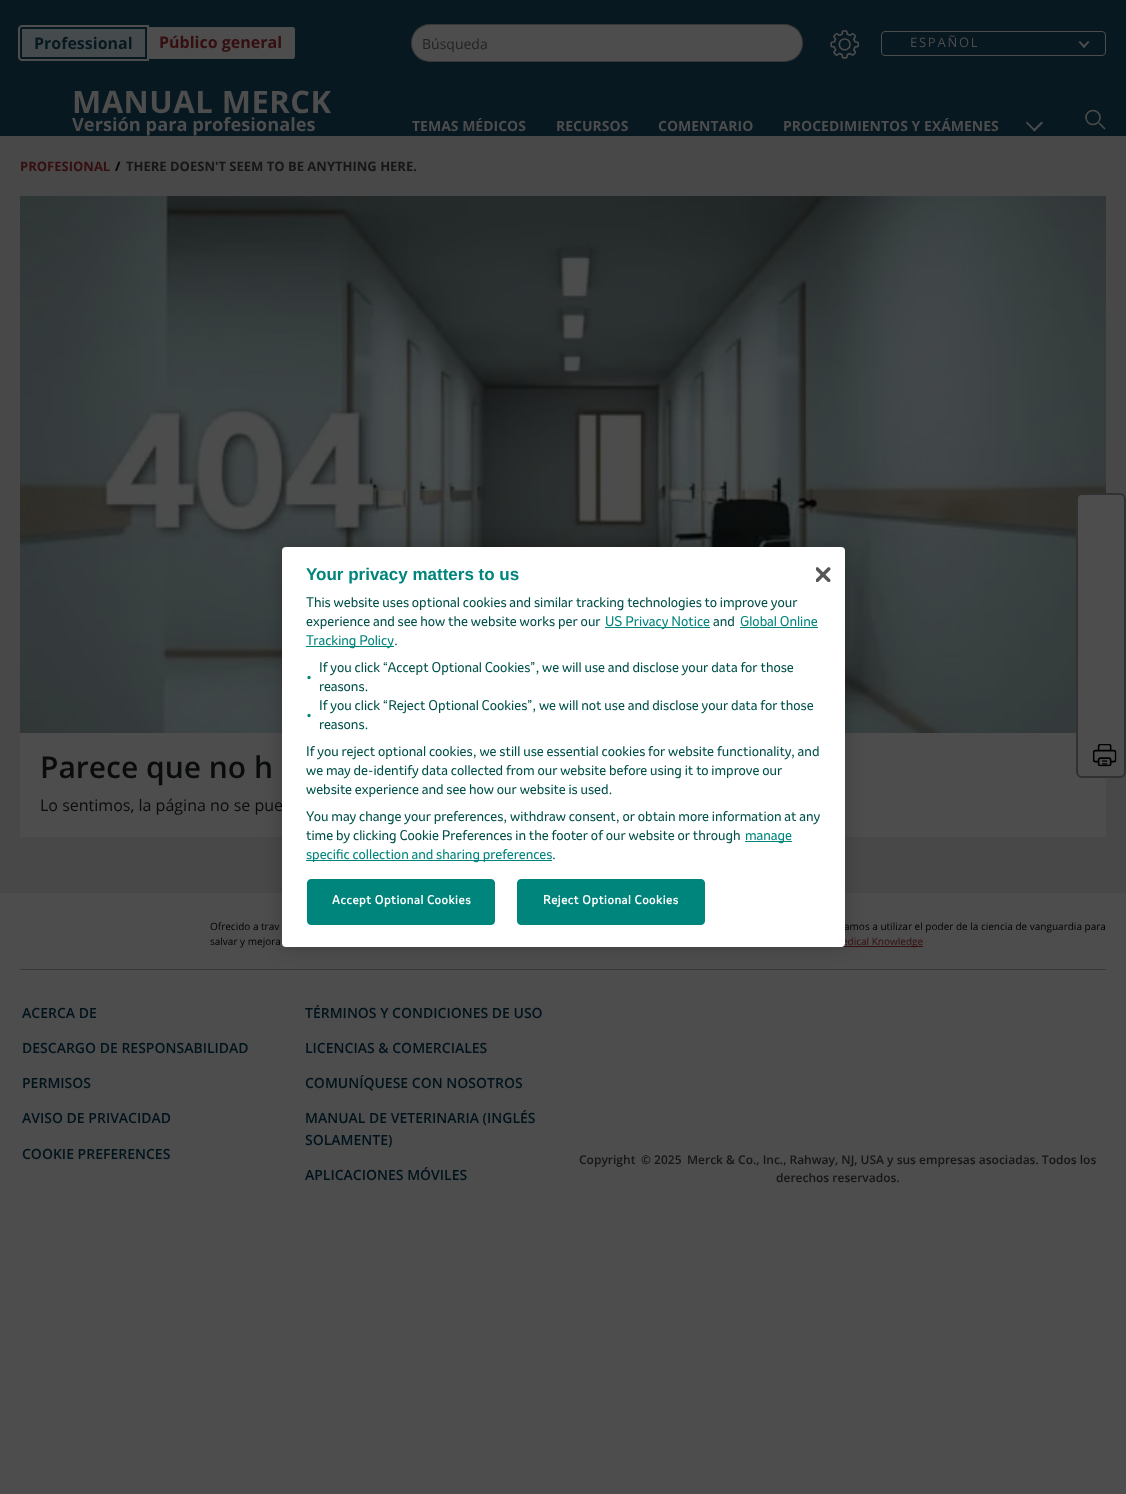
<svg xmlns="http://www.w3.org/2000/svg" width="1126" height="1494">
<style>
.a{font:bold 16px Open Sans;fill:#071821}
.b{font:bold 16px Open Sans;fill:#350e0f}
.c{font:14px Open Sans;fill:#232323}
.d{font:13px Open Sans;letter-spacing:1.75px;fill:#4d4d4d}
.e{font:bold 31px Open Sans;letter-spacing:0.5px;fill:#4d4d4d}
.f{font:bold 18.25px Open Sans;fill:#4d4d4d}
.g{font:bold 14px Open Sans;fill:#4d4d4d}
.h{font:bold 13px Open Sans;fill:#350e0f}
.i{font:bold 13px Open Sans;fill:#000}
.j{font:bold 13px Open Sans;fill:#161616}
.k{font:600 30px Open Sans;fill:#0a0b0c}
.l{font:16px Open Sans;fill:#0a0b0c}
.m{font:10px Open Sans;fill:#000}
.n{font:10px Open Sans;fill:#350e0f}
.o{font:600 14px Open Sans;fill:#00131c}
.p{font:600 12px Open Sans;fill:#161616}
.q{font:bold 17px Liberation Sans;fill:#00857c}
.r{font:13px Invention;fill:#00504a}
.s{font:13px Invention;fill:#00857c}
.t{font:16px Invention;fill:#00857c}
.u{font:bold 11.4px Invention;letter-spacing:0.6px;fill:#fff}
</style>
<rect width="100%" height="100%" fill="#484848"/>
<path fill="#071821" d="M0 0h1126v136H0z"/>
<path fill="#4d4d4d" stroke="#4a4b4b" d="M146.5 27.5h146.5c1 0 1.5 .5 1.5 1.5v28c0 1-.5 1.5-1.5 1.5h-146.5z"/>
<path fill="#454b4c" stroke="#071821" stroke-width="2" d="M22 28h124v30h-124c-.5 0-1-.5-1-1v-28c0-.5 .5-1 1-1z"/>
<path fill="none" stroke="#4d4d4d" stroke-width="2" d="M22 26h126v34h-126c-1.5 0-3-1.5-3-3v-28c0-1.5 1.5-3 3-3z"/>
<rect fill="#4d4d4d" x="411" y="24" width="392" height="38" rx="19"/>
<rect fill="none" stroke="#00000045" x="411.5" y="24.5" width="391" height="37" rx="18.5"/>
<image href="1.png" x="830" y="30" width="29" height="29"/>
<rect fill="none" stroke="#4d4d4d" x="881.5" y="31.5" width="224" height="24" rx="3.5"/>
<path fill="#4d4d4d" d="M1088 41l1.5 1l-5.5 6l-1.5-1.5z"/>
<path fill="#4d4d4d" d="M1080 41l5.5 5.5l-1.5 1.5l-5.5-6z"/>
<path fill="#4d4d4d" d="M1041.5 121.5l1.5 1.5l-8.5 8.5l-1.5-1.5z"/>
<path fill="#4d4d4d" d="M1027 121.5l8.5 8.5l-1 1.5l-8.5-8.5z"/>
<circle fill="none" stroke="#4d4d4d" stroke-width="1.6" cx="1093" cy="117.5" r="7"/>
<path fill="none" stroke="#4d4d4d" stroke-width="1.6" d="M1105 129l-6-6"/>
<path fill="#4d4d4d" d="M20 733h1086v104H20z"/>
<image href="3.png" x="20" y="196" width="1086" height="537"/>
<rect fill="#4d4d4d" stroke="#313131" stroke-width="2" x="1077" y="494" width="48" height="283" rx="5"/>
<image href="2.png" x="1093" y="744" width="24" height="23"/>
<path fill="#4d4d4d" d="M0 893h1126v601H0z"/>
<path fill="#383838" d="M20 969h1086v1H20z"/>
<path fill="#350e0f" d="M841 946h82v1H841z"/>
<rect fill="#00000033" filter="blur(9px)" x="282" y="547" width="563" height="400" rx="4"/>
<text class="a" x="34" y="49">Professional</text>
<text class="b" x="159" y="48">Público general</text>
<text class="c" x="422" y="49">Búsqueda</text>
<text class="d" x="910" y="47">ESPAÑOL</text>
<text class="e" x="72" y="113">MANUAL MERCK</text>
<text class="f" x="72" y="131">Versión para profesionales</text>
<text class="g" x="412" y="131">TEMAS MÉDICOS</text>
<text class="g" x="556" y="131">RECURSOS</text>
<text class="g" x="658" y="131">COMENTARIO</text>
<text class="g" x="783" y="131">PROCEDIMIENTOS Y EXÁMENES</text>
<text class="h" x="20" y="171">PROFESIONAL</text>
<text class="i" x="115" y="171">/</text>
<text class="j" x="126" y="171">THERE DOESN'T SEEM TO BE ANYTHING HERE.</text>
<text class="k" x="40" y="778">Parece que no h</text>
<text class="l" x="40" y="811">Lo sentimos, la página no se pue</text>
<text class="m" x="210" y="930">Ofrecido a trav</text>
<text class="m" x="844" y="930">amos a utilizar el poder de la ciencia de vanguardia para</text>
<text class="m" x="210" y="945">salvar y mejora</text>
<text class="n" x="842" y="945">edical Knowledge</text>
<text class="o" x="22" y="1018">ACERCA DE</text>
<text class="o" x="305" y="1018">TÉRMINOS Y CONDICIONES DE USO</text>
<text class="o" x="22" y="1053">DESCARGO DE RESPONSABILIDAD</text>
<text class="o" x="305" y="1053">LICENCIAS &amp; COMERCIALES</text>
<text class="o" x="22" y="1088">PERMISOS</text>
<text class="o" x="305" y="1088">COMUNÍQUESE CON NOSOTROS</text>
<text class="o" x="22" y="1123">AVISO DE PRIVACIDAD</text>
<text class="o" x="305" y="1123">MANUAL DE VETERINARIA (INGLÉS</text>
<text class="o" x="305" y="1145">SOLAMENTE)</text>
<text class="o" x="22" y="1159">COOKIE PREFERENCES</text>
<text class="o" x="305" y="1180">APLICACIONES MÓVILES</text>
<text class="p" x="579" y="1164">Copyright</text>
<text class="p" x="641" y="1164">© 2025</text>
<text class="p" x="687" y="1164">Merck &amp; Co., Inc., Rahway, NJ, USA y sus empresas asociadas. Todos los</text>
<text class="p" x="776" y="1182">derechos reservados.</text>
<rect fill="#fff" x="282" y="547" width="563" height="400" rx="4"/>
<text class="q" x="306" y="580">Your privacy matters to us</text>
<text class="r" x="306" y="607">This website uses optional cookies and similar tracking technologies to improve your</text>
<text class="r" x="306" y="626">experience and see how the website works per our</text>
<path fill="#00857c" d="M605 627h105v1H605z"/>
<text class="s" x="605" y="626">US Privacy Notice</text>
<text class="r" x="713" y="626">and</text>
<text class="s" x="740" y="626">Global Online</text>
<path fill="#00857c" d="M740 627h78v1H740z"/>
<path fill="#00857c" d="M306 646h88v1H306z"/>
<text class="s" x="306" y="645">Tracking Policy</text>
<text class="r" x="394" y="645">.</text>
<text class="r" x="319" y="672">If you click “Accept Optional Cookies”, we will use and disclose your data for those</text>
<text class="t" x="306" y="682">•</text>
<text class="r" x="319" y="691">reasons.</text>
<text class="r" x="319" y="710">If you click “Reject Optional Cookies”, we will not use and disclose your data for those</text>
<text class="t" x="306" y="720">•</text>
<text class="r" x="319" y="729">reasons.</text>
<text class="r" x="306" y="756">If you reject optional cookies, we still use essential cookies for website functionality, and</text>
<text class="r" x="306" y="775">we may de-identify data collected from our website before using it to improve our</text>
<text class="r" x="306" y="794">website experience and see how our website is used.</text>
<text class="r" x="306" y="821">You may change your preferences, withdraw consent, or obtain more information at any</text>
<text class="r" x="306" y="840">time by clicking Cookie Preferences in the footer of our website or through</text>
<path fill="#00857c" d="M745 841h47v1H745z"/>
<text class="s" x="745" y="840">manage</text>
<path fill="#00857c" d="M306 860h246v1H306z"/>
<text class="s" x="306" y="859">specific collection and sharing preferences</text>
<text class="r" x="552" y="859">.</text>
<image href="4.png" x="816" y="567" width="15" height="15"/>
<rect fill="#00857c" stroke="#00857c" x="307.5" y="879.5" width="187" height="45" rx="3.5"/>
<text class="u" x="332" y="904">Accept Optional Cookies</text>
<rect fill="#00857c" stroke="#00857c" x="517.5" y="879.5" width="187" height="45" rx="3.5"/>
<text class="u" x="543" y="904">Reject Optional Cookies</text>
</svg>
